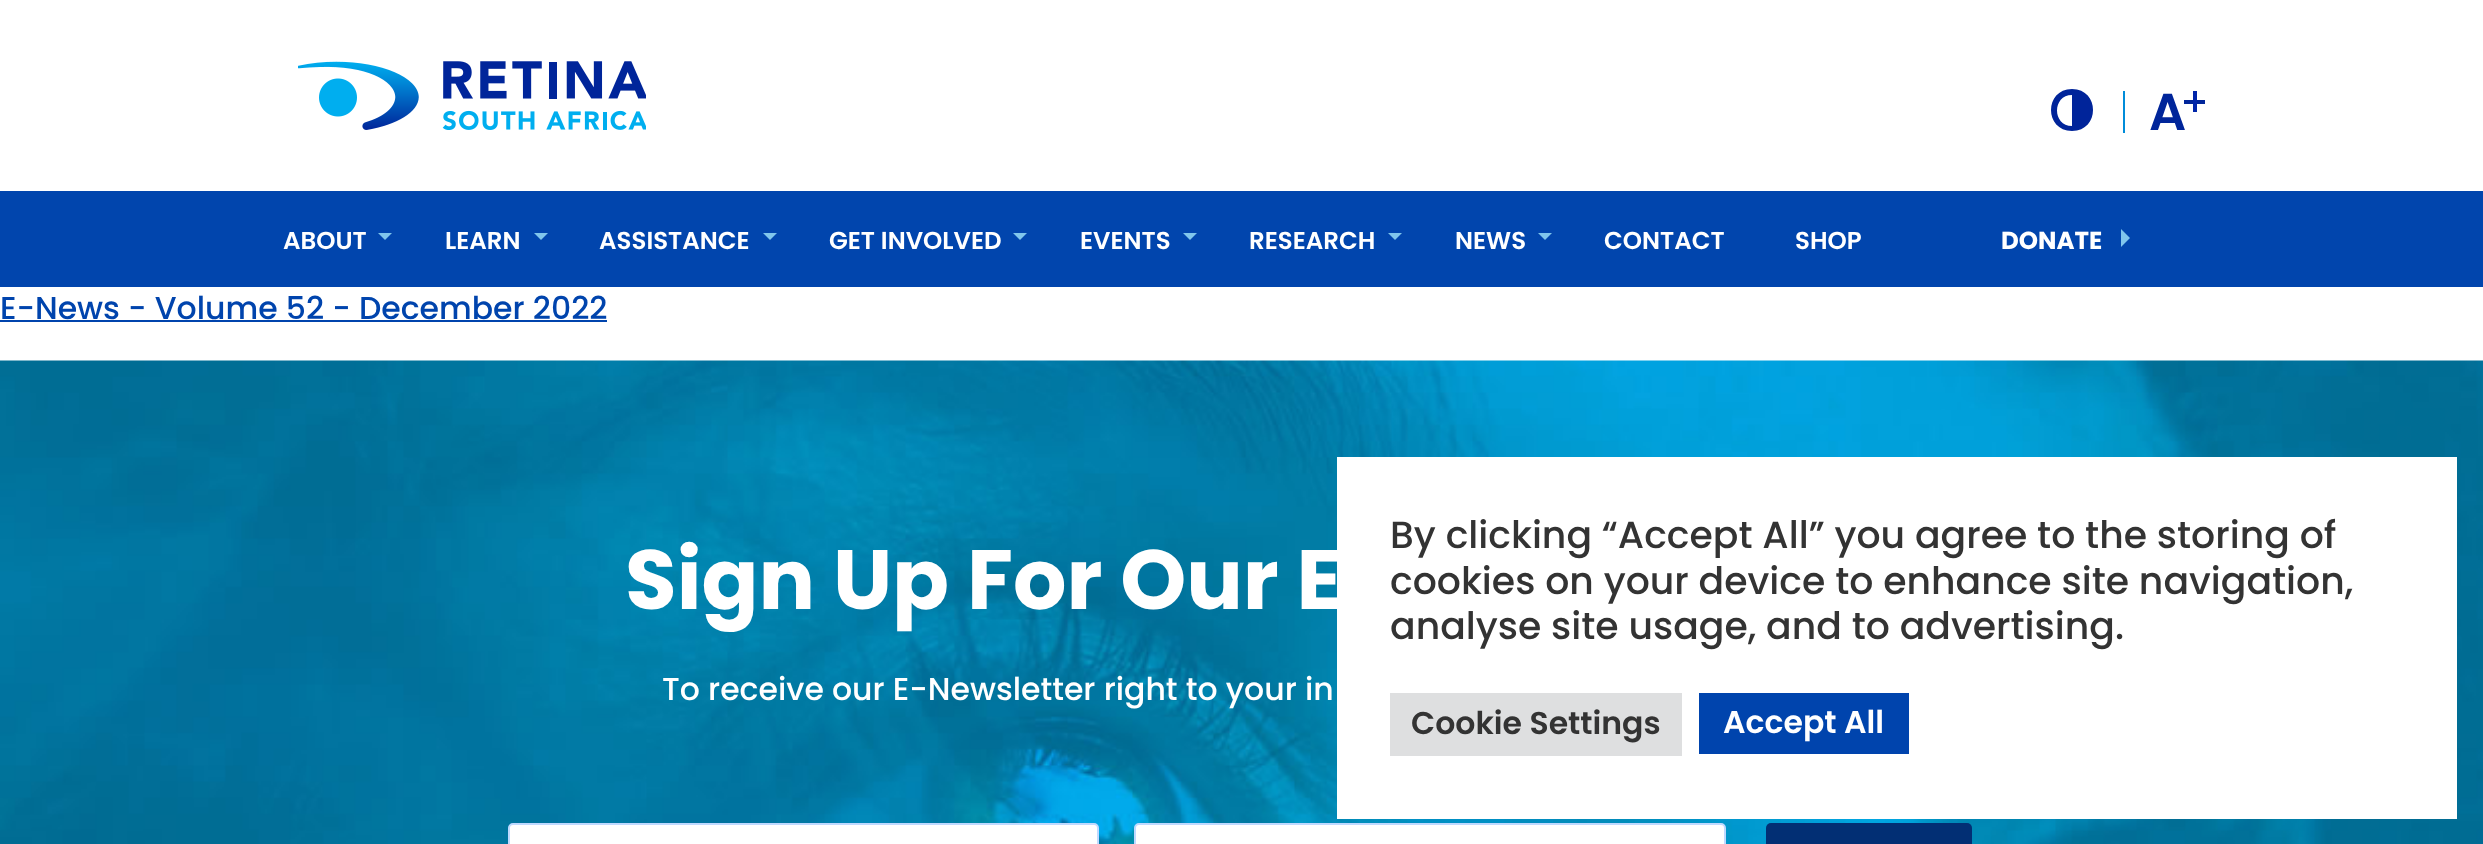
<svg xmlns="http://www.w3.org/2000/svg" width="2483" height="844">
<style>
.a{font:600 52px Poppins;fill:#00259a}
.b{font:600 24.5px Poppins;fill:#fff}
.c{font:bold 24.5px Poppins;fill:#fff}
.d{font:500 31.5px Poppins;fill:#0044ad}
.e{font:bold 84px Poppins;fill:#fff}
.f{font:500 31.5px Poppins;fill:#fff}
.g{font:500 37.8px Poppins;fill:#333}
.h{font:600 31.5px Poppins;fill:#333}
.i{font:600 31.5px Poppins;fill:#fff}
</style>
<rect width="100%" height="100%" fill="#fff"/>
<image href="1.png" x="298" y="61" width="348" height="69"/>
<path fill="#00249a" d="M2072 89c-28 0-28 42 0 42c28 0 28-42 0-42zm0 37c-20 0-20-31 0-31z"/>
<path fill="#008cd9" d="M2123 91h2v42H2123z"/>
<path fill="#00259a" d="M2184 100h21v4H2184z"/>
<path fill="#0025a9" d="M2193 91h4v21H2193z"/>
<path fill="#0145ad" d="M0 191h2483v96H0z"/>
<path fill="#80c6ec" d="M378 233h14l-7 7z"/>
<path fill="#80c6ec" d="M534 233h14l-7 7z"/>
<path fill="#80c6ec" d="M763 233h14l-7 7z"/>
<path fill="#80c6ec" d="M1013 233h14l-7 7z"/>
<path fill="#80c6ec" d="M1183 233h14l-7 7z"/>
<path fill="#80c6ec" d="M1388 233h14l-7 7z"/>
<path fill="#80c6ec" d="M1538 233h14l-7 7z"/>
<path fill="#80c6ec" d="M2121 247v-18l9 9z"/>
<path fill="#0044ad" d="M0 320h607v2H0z"/>
<image href="2.png" x="0" y="360" width="2483" height="484"/>
<rect fill="#fff" stroke="#bfd9ff" stroke-width="2" x="509" y="824" width="589" height="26" rx="4"/>
<rect fill="#fff" stroke="#bfd9ff" stroke-width="2" x="1135" y="824" width="590" height="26" rx="4"/>
<rect fill="#022f74" x="1766" y="823" width="206" height="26" rx="5"/>
<path fill="#fff" d="M1337 457h1120v362H1337z"/>
<path fill="#dedfe0" d="M1390 693h292v63H1390z"/>
<path fill="#0044ad" d="M1699 693h210v61H1699z"/>
<text class="a" x="2149" y="130">A</text>
<text class="b" x="283" y="249">ABOUT</text>
<text class="b" x="445" y="249">LEARN</text>
<text class="b" x="599" y="249">ASSISTANCE</text>
<text class="b" x="829" y="249">GET INVOLVED</text>
<text class="b" x="1080" y="249">EVENTS</text>
<text class="b" x="1249" y="249">RESEARCH</text>
<text class="b" x="1455" y="249">NEWS</text>
<text class="b" x="1604" y="249">CONTACT</text>
<text class="b" x="1795" y="249">SHOP</text>
<text class="c" x="2001" y="249">DONATE</text>
<text class="d" x="0" y="319">E-News - Volume 52 - December 2022</text>
<text class="e" x="625" y="609">Sign Up For Our E</text>
<text class="f" x="662" y="700">To receive our E-Newsletter right to your in</text>
<text class="g" x="1390" y="548">By clicking “Accept All” you agree to the storing of</text>
<text class="g" x="1390" y="594">cookies on your device to enhance site navigation,</text>
<text class="g" x="1390" y="639">analyse site usage, and to advertising.</text>
<text class="h" x="1411" y="734">Cookie Settings</text>
<text class="i" x="1723" y="733">Accept All</text>
</svg>
